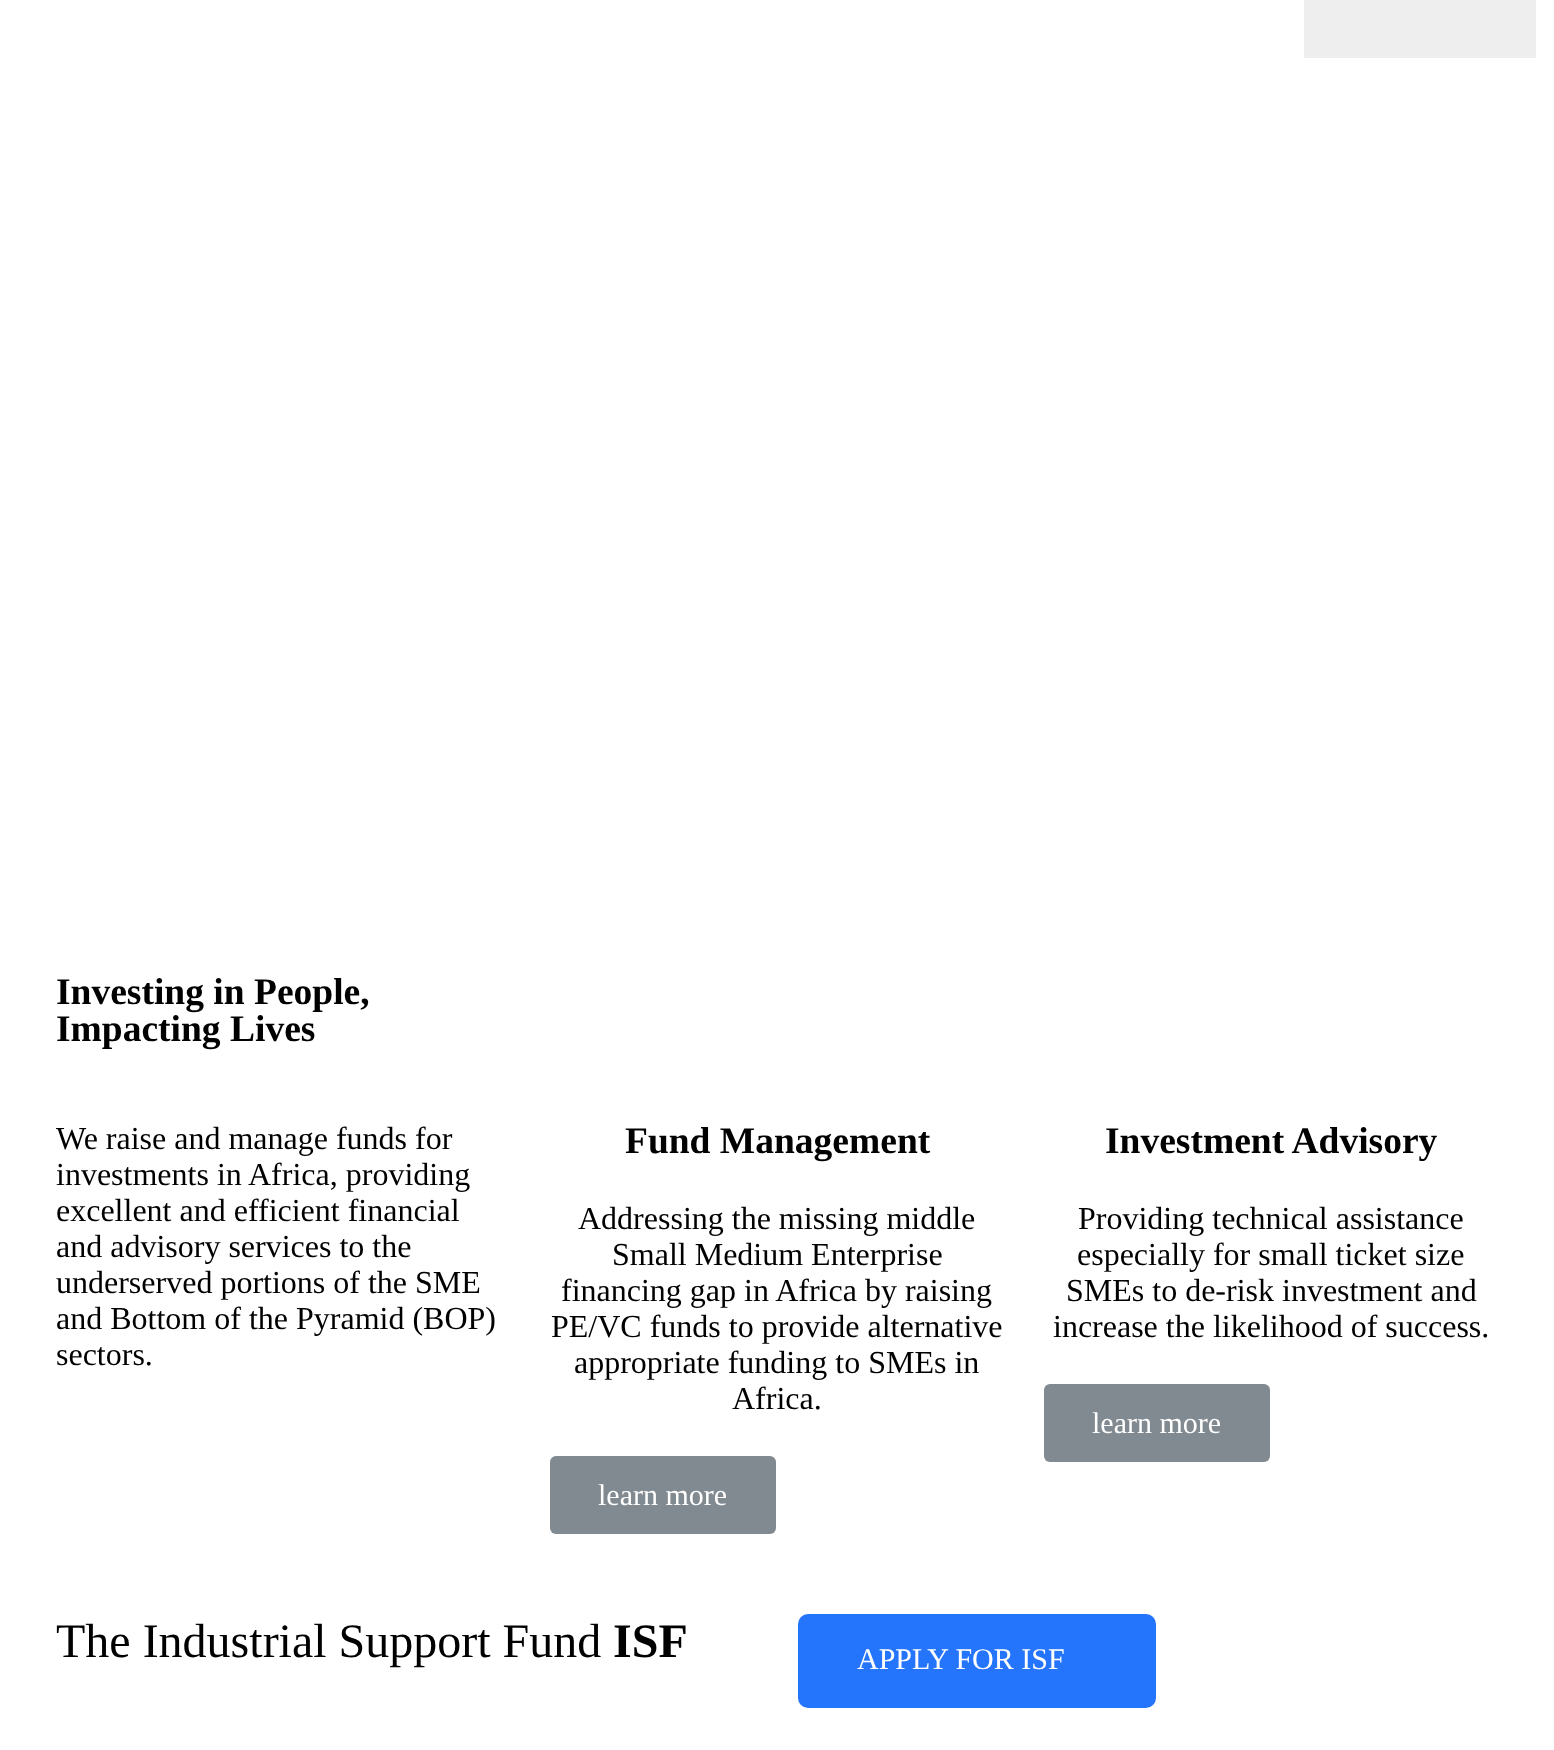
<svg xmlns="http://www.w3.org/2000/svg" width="1554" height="1750">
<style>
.a{font:bold 37.5px Liberation Serif;fill:#000}
.b{font:32px Liberation Serif;fill:#000}
.c{font:30px Liberation Serif;fill:#fff}
.d{font:48px Liberation Serif;fill:#000}
.e{font:bold 48px Liberation Serif;fill:#000}
</style>
<rect width="100%" height="100%" fill="#fff"/>
<path fill="#eee" d="M1304 0h232v58H1304z"/>
<rect fill="#818a91" x="550" y="1456" width="226" height="78" rx="6"/>
<rect fill="#818a91" x="1044" y="1384" width="226" height="78" rx="6"/>
<rect fill="#2575fc" x="798" y="1614" width="358" height="94" rx="10"/>
<text class="a" x="56" y="1004">Investing in People,</text>
<text class="a" x="56" y="1041">Impacting Lives</text>
<text class="b" x="56" y="1149">We raise and manage funds for</text>
<text class="b" x="56" y="1185">investments in Africa, providing</text>
<text class="b" x="56" y="1221">excellent and efficient financial</text>
<text class="b" x="56" y="1257">and advisory services to the</text>
<text class="b" x="56" y="1293">underserved portions of the SME</text>
<text class="b" x="56" y="1329">and Bottom of the Pyramid (BOP)</text>
<text class="b" x="56" y="1365">sectors.</text>
<text class="a" x="625" y="1153">Fund Management</text>
<text class="b" x="578" y="1229">Addressing the missing middle</text>
<text class="b" x="612" y="1265">Small Medium Enterprise</text>
<text class="b" x="561" y="1301">financing gap in Africa by raising</text>
<text class="b" x="551" y="1337">PE/VC funds to provide alternative</text>
<text class="b" x="574" y="1373">appropriate funding to SMEs in</text>
<text class="b" x="732" y="1409">Africa.</text>
<text class="c" x="598" y="1505">learn more</text>
<text class="a" x="1105" y="1153">Investment Advisory</text>
<text class="b" x="1078" y="1229">Providing technical assistance</text>
<text class="b" x="1077" y="1265">especially for small ticket size</text>
<text class="b" x="1066" y="1301">SMEs to de-risk investment and</text>
<text class="b" x="1053" y="1337">increase the likelihood of success.</text>
<text class="c" x="1092" y="1433">learn more</text>
<text class="d" x="56" y="1657">The Industrial Support Fund</text>
<text class="e" x="613" y="1657">ISF</text>
<text class="c" x="857" y="1669">APPLY FOR ISF</text>
</svg>
